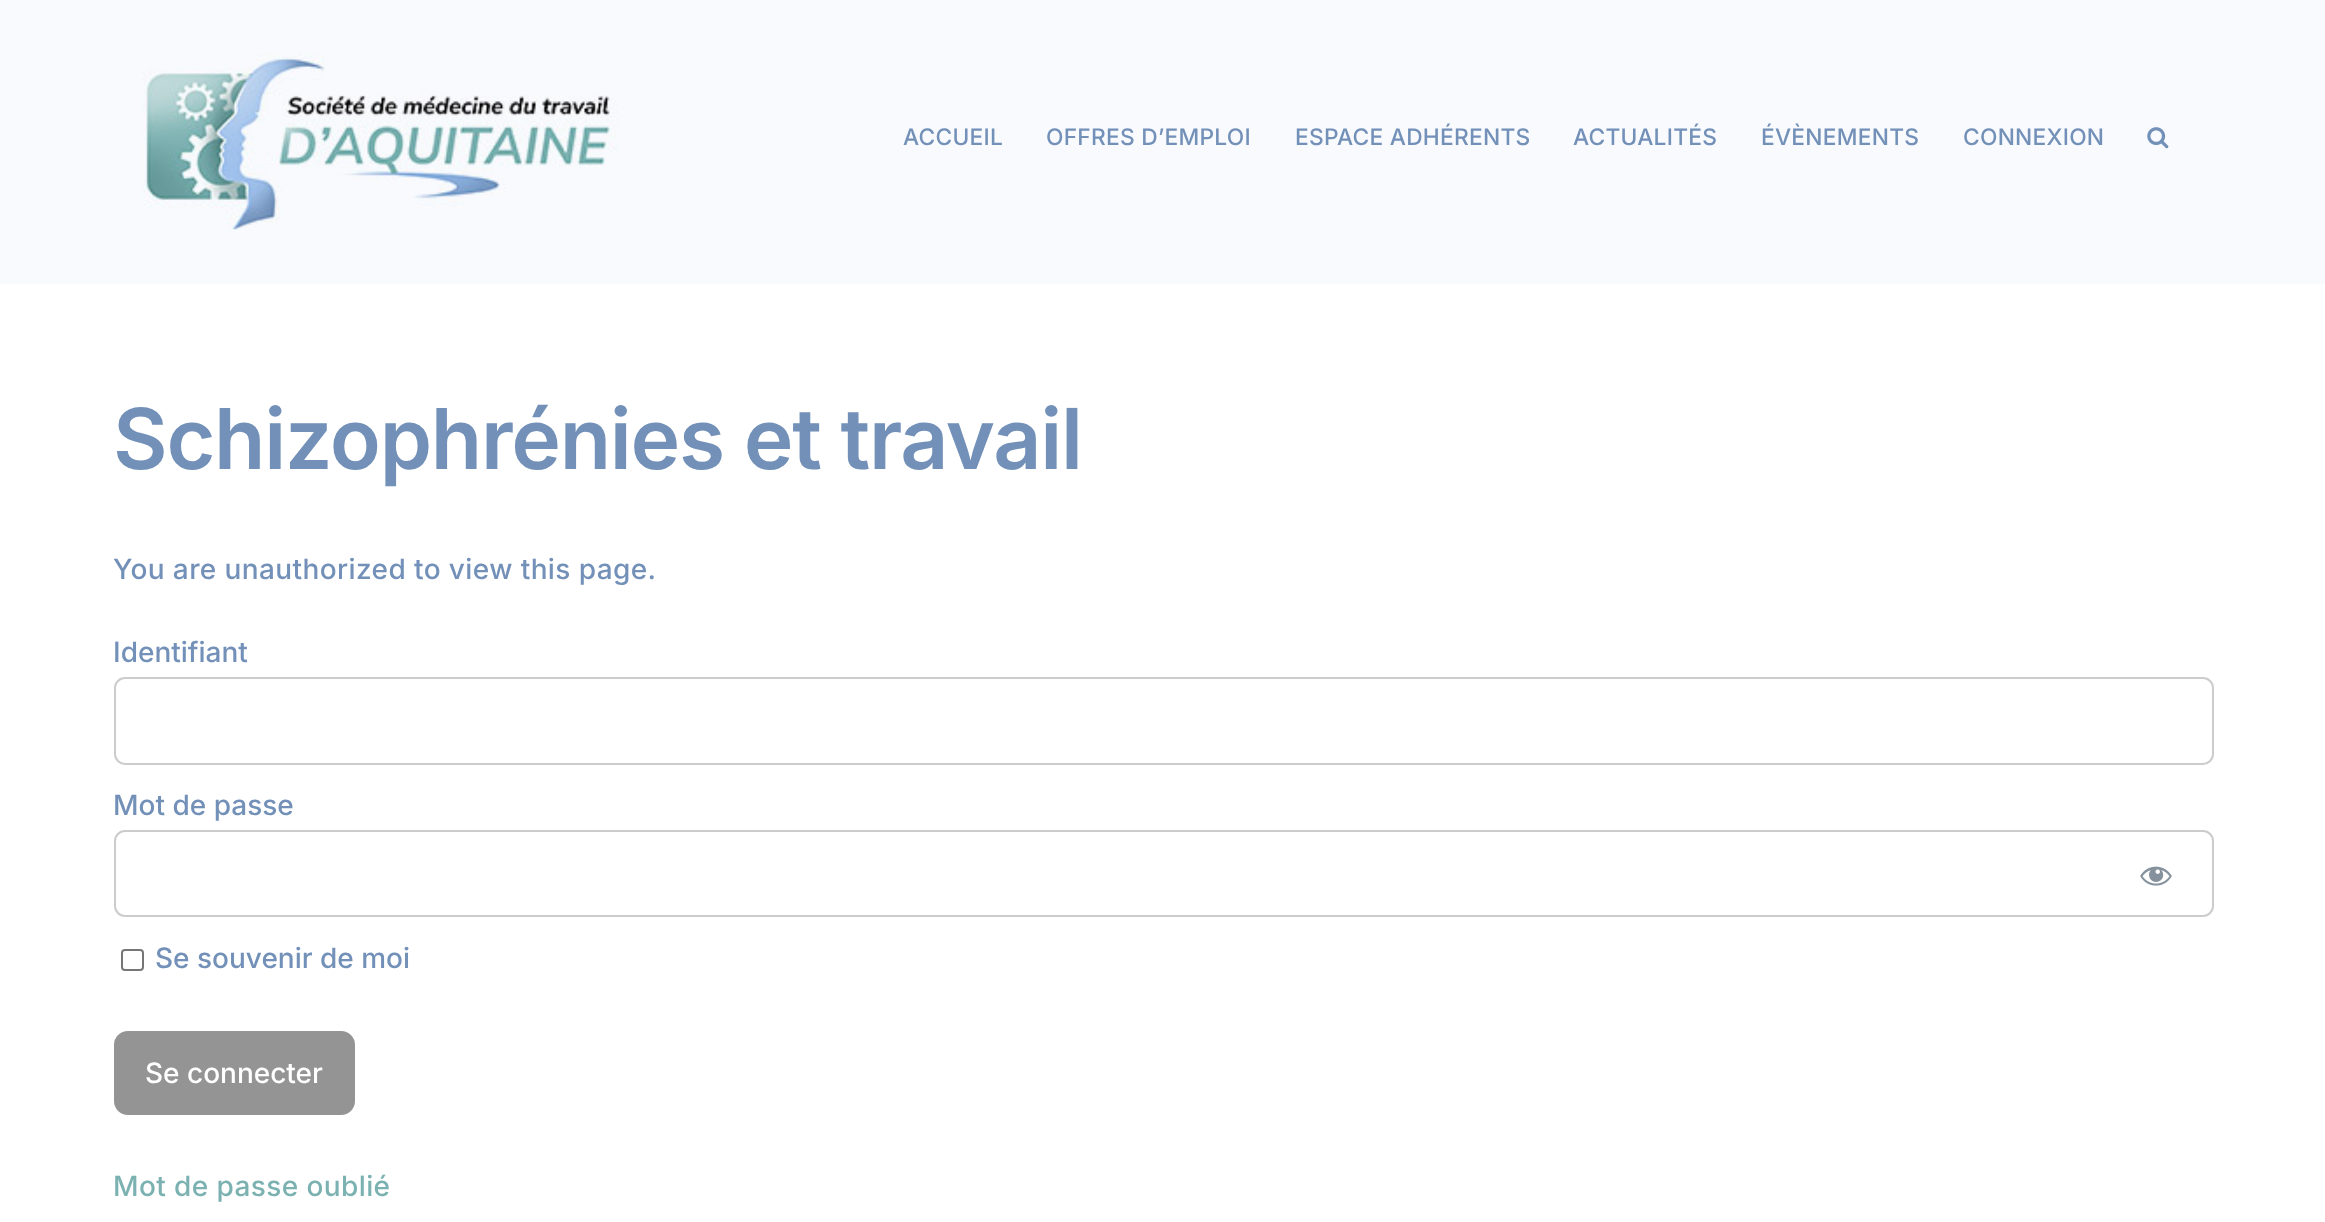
<svg xmlns="http://www.w3.org/2000/svg" width="2325" height="1222">
<style>
.a{font:500 22.75px Inter;letter-spacing:0.25px;fill:#7290b8}
.b{font:600 84px Inter;letter-spacing:-1.25px;fill:#7290b8}
.c{font:500 28px Inter;letter-spacing:0.4px;fill:#7290b8}
.d{font:500 28px Inter;fill:#7290b8}
.e{font:500 28px Inter;fill:#fff}
.f{font:500 28px Inter;letter-spacing:0.4px;fill:#7bb1b1}
</style>
<rect width="100%" height="100%" fill="#fff"/>
<path fill="#f8fafd" d="M0 0h2325v284H0z"/>
<image href="1.png" x="142" y="54" width="476" height="176"/>
<image href="2.png" x="2147" y="127" width="22" height="22"/>
<rect fill="none" stroke="#ccc" stroke-width="2" x="115" y="678" width="2098" height="86" rx="10"/>
<rect fill="none" stroke="#ccc" stroke-width="2" x="115" y="831" width="2098" height="85" rx="10"/>
<image href="3.png" x="2140" y="866" width="32" height="20"/>
<rect fill="none" stroke="#767676" stroke-width="2" x="122" y="950" width="21" height="20" rx="3"/>
<rect fill="#949494" stroke="#949494" stroke-width="2" x="115" y="1032" width="239" height="82" rx="13"/>
<text class="a" x="903" y="145">ACCUEIL</text>
<text class="a" x="1046" y="145">OFFRES D’EMPLOI</text>
<text class="a" x="1295" y="145">ESPACE ADHÉRENTS</text>
<text class="a" x="1573" y="145">ACTUALITÉS</text>
<text class="a" x="1761" y="145">ÉVÈNEMENTS</text>
<text class="a" x="1963" y="145">CONNEXION</text>
<text class="b" x="113" y="469">Schizophrénies et travail</text>
<text class="c" x="113" y="579">You are unauthorized to view this page.</text>
<text class="d" x="113" y="662">Identifiant</text>
<text class="d" x="113" y="815">Mot de passe</text>
<text class="d" x="155" y="968">Se souvenir de moi</text>
<text class="e" x="145" y="1083">Se connecter</text>
<text class="f" x="113" y="1196">Mot de passe oublié</text>
</svg>
